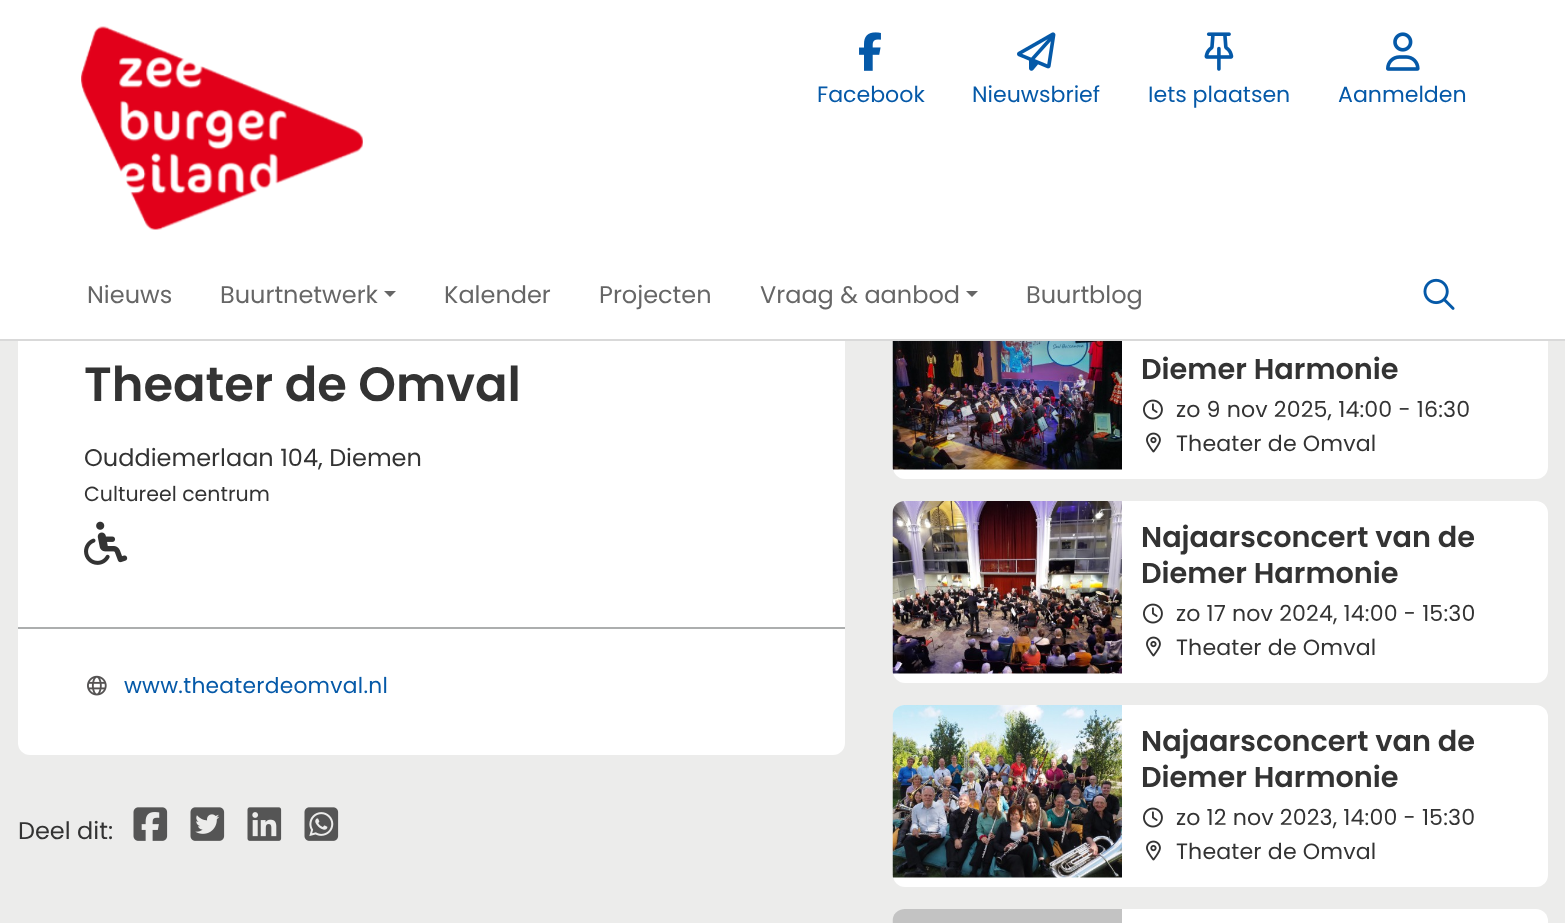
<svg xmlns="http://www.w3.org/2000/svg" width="1565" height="923">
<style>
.a{font:22.1px Poppins;fill:#0559a8}
.b{font:24px Poppins;fill:#666}
.c{font:600 48px Poppins;fill:#333}
.d{font:24px Poppins;fill:#333}
.e{font:20.5px Poppins;fill:#333}
.f{font:21.8px Poppins;letter-spacing:0.25px;fill:#0559a8}
.g{font:600 28.75px Poppins;fill:#333}
.h{font:22.1px Poppins;letter-spacing:0.15px;fill:#333}
</style>
<rect width="100%" height="100%" fill="#ececeb"/>
<rect fill="#fff" x="18" y="252" width="827" height="503" rx="12"/>
<rect fill="#fff" x="893" y="297" width="655" height="182" rx="12"/>
<path fill="#fff" d="M0 0h1565v339H0z"/>
<path fill="#d9d9d9" d="M0 339h1565v2H0z"/>
<image href="1.png" x="81" y="26" width="282" height="204"/>
<image href="2.png" x="859" y="32" width="22" height="39"/>
<image href="3.png" x="1017" y="32" width="39" height="39"/>
<image href="4.png" x="1204" y="32" width="30" height="39"/>
<image href="5.png" x="1386" y="32" width="34" height="39"/>
<path fill="#666" d="M384 291h12l-6 6z"/>
<path fill="#666" d="M966 291h12l-6 6z"/>
<image href="6.png" x="1423" y="278" width="32" height="32"/>
<image href="7.png" x="84" y="521" width="44" height="44"/>
<path fill="#acaeae" d="M18 627h827v2H18z"/>
<image href="8.png" x="87" y="675" width="20" height="21"/>
<image href="9.png" x="133" y="807" width="35" height="34"/>
<image href="10.png" x="190" y="807" width="35" height="34"/>
<image href="11.png" x="247" y="807" width="35" height="34"/>
<image href="12.png" x="304" y="807" width="35" height="34"/>
<image href="13.png" x="892" y="341" width="230" height="129"/>
<image href="14.png" x="1143" y="399" width="20" height="21"/>
<image href="15.png" x="1146" y="432" width="15" height="21"/>
<rect fill="#fff" x="893" y="501" width="655" height="182" rx="12"/>
<image href="16.png" x="892" y="501" width="230" height="173"/>
<image href="14.png" x="1143" y="603" width="20" height="21"/>
<image href="15.png" x="1146" y="636" width="15" height="21"/>
<rect fill="#fff" x="893" y="705" width="655" height="182" rx="12"/>
<image href="17.png" x="892" y="705" width="230" height="173"/>
<image href="14.png" x="1143" y="807" width="20" height="21"/>
<image href="15.png" x="1146" y="840" width="15" height="21"/>
<rect fill="#fff" x="893" y="909" width="655" height="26" rx="12"/>
<image href="18.png" x="892" y="909" width="230" height="14"/>
<text class="a" x="817" y="102">Facebook</text>
<text class="a" x="972" y="102">Nieuwsbrief</text>
<text class="a" x="1148" y="102">Iets plaatsen</text>
<text class="a" x="1338" y="102">Aanmelden</text>
<text class="b" x="87" y="303">Nieuws</text>
<text class="b" x="220" y="303">Buurtnetwerk</text>
<text class="b" x="444" y="303">Kalender</text>
<text class="b" x="599" y="303">Projecten</text>
<text class="b" x="760" y="303">Vraag &amp; aanbod</text>
<text class="b" x="1026" y="303">Buurtblog</text>
<text class="c" x="84" y="401">Theater de Omval</text>
<text class="d" x="84" y="466">Ouddiemerlaan 104, Diemen</text>
<text class="e" x="84" y="501">Cultureel centrum</text>
<text class="f" x="124" y="693">www.theaterdeomval.nl</text>
<text class="d" x="18" y="839">Deel dit:</text>
<text class="g" x="1141" y="379">Diemer Harmonie</text>
<text class="h" x="1176" y="417">zo 9 nov 2025, 14:00 - 16:30</text>
<text class="h" x="1176" y="451">Theater de Omval</text>
<text class="g" x="1141" y="547">Najaarsconcert van de</text>
<text class="g" x="1141" y="583">Diemer Harmonie</text>
<text class="h" x="1176" y="621">zo 17 nov 2024, 14:00 - 15:30</text>
<text class="h" x="1176" y="655">Theater de Omval</text>
<text class="g" x="1141" y="751">Najaarsconcert van de</text>
<text class="g" x="1141" y="787">Diemer Harmonie</text>
<text class="h" x="1176" y="825">zo 12 nov 2023, 14:00 - 15:30</text>
<text class="h" x="1176" y="859">Theater de Omval</text>
</svg>
